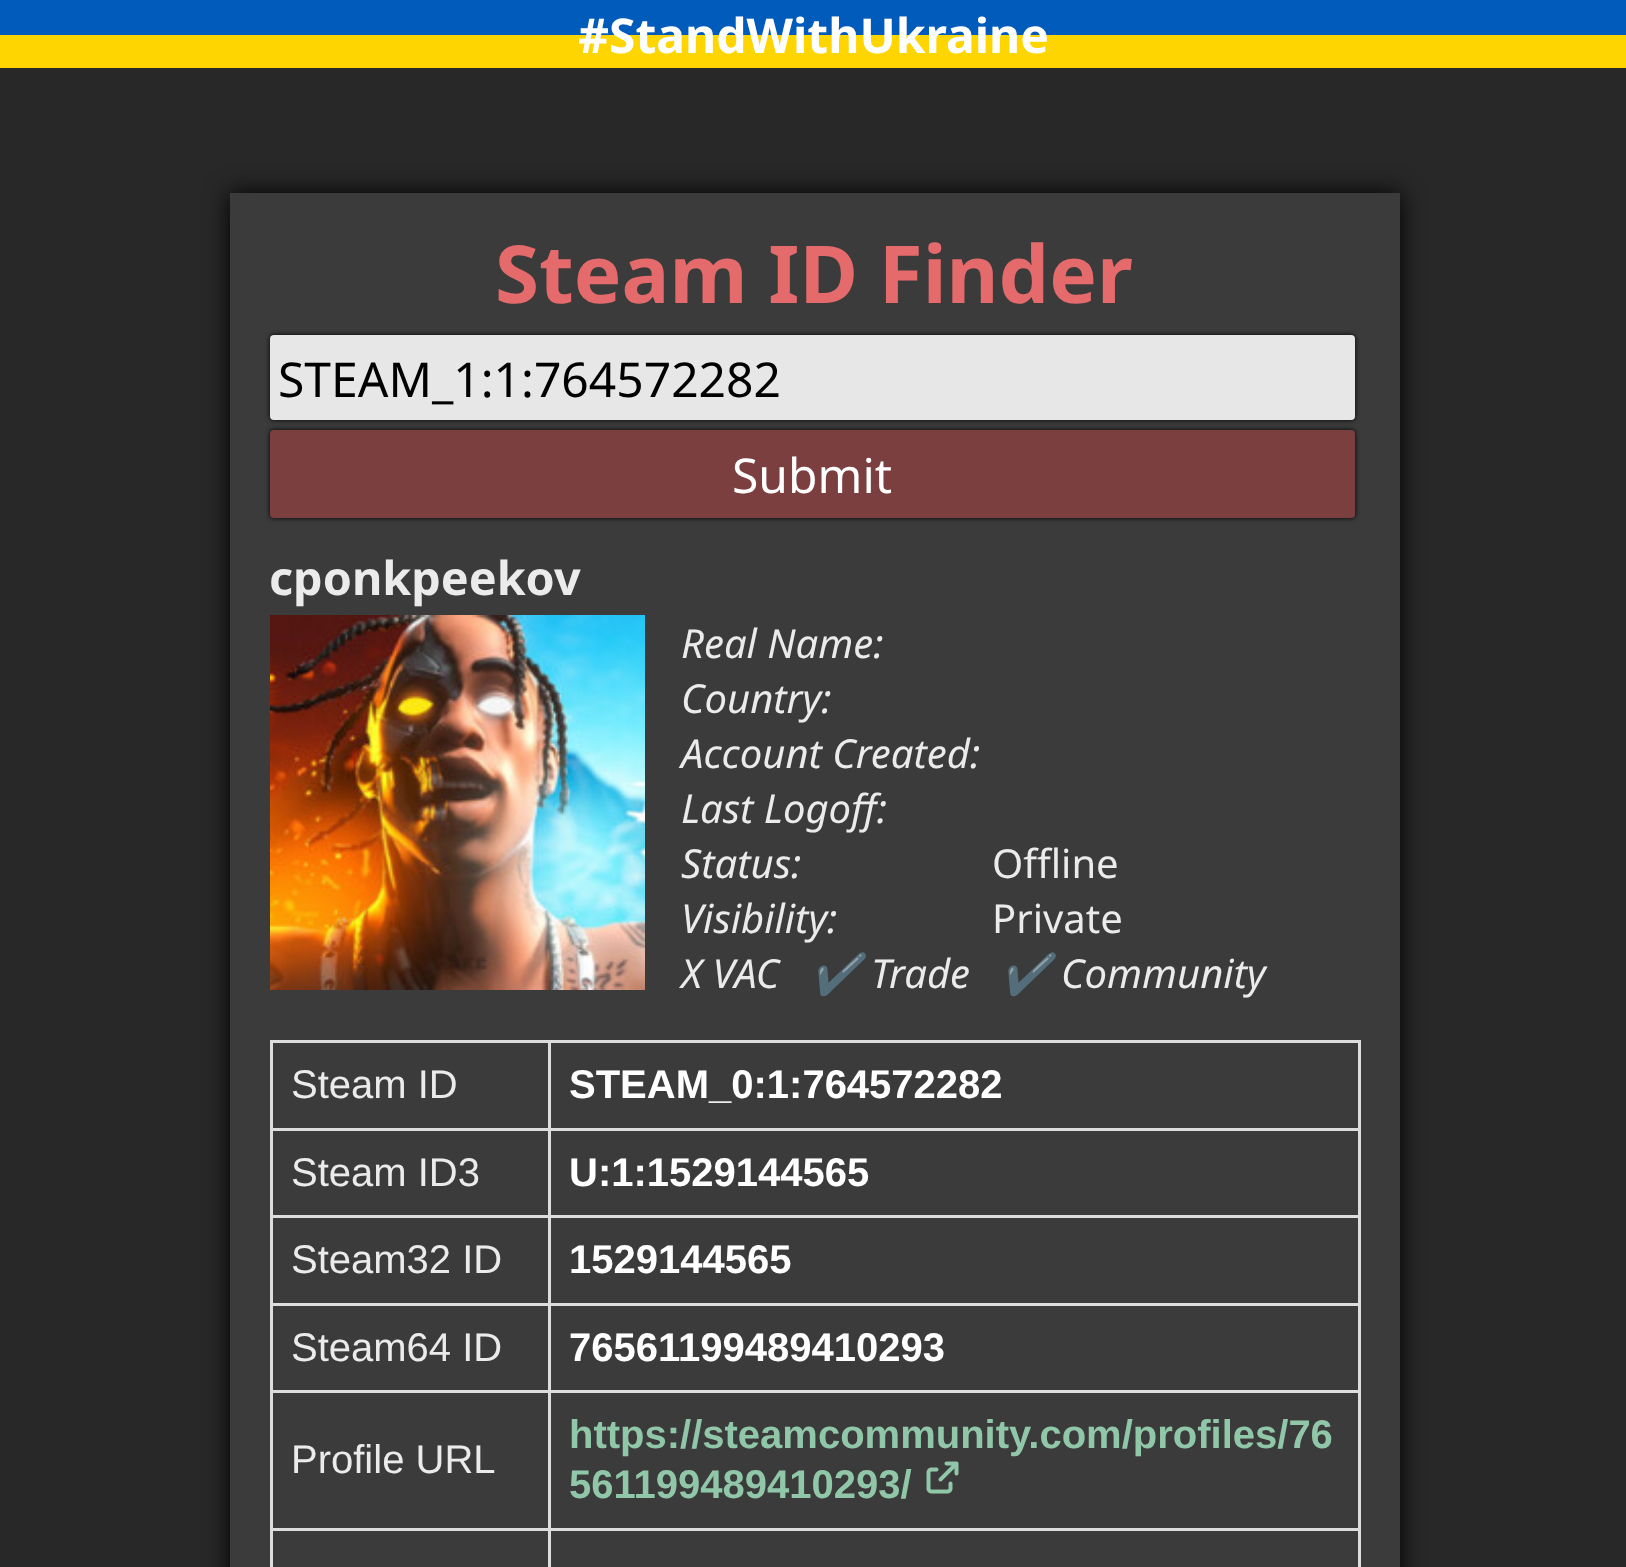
<svg xmlns="http://www.w3.org/2000/svg" width="1626" height="1567">
<style>
.a{font:bold 48px Noto Sans;fill:#fff}
.b{font:bold 80px Noto Sans;fill:#e46a6b}
.c{font:48px Noto Sans;fill:#000}
.d{font:48px Noto Sans;fill:#fff}
.e{font:bold 46.75px Noto Sans;fill:#ebebeb}
.f{font:italic 40px Noto Sans;fill:#ebebeb}
.g{font:40px Noto Sans;fill:#ebebeb}
.h{font:italic 40px Noto Color Emoji;fill:#ebebeb}
.i{font:40px Liberation Sans;fill:#ebebeb}
.j{font:bold 40px Liberation Sans;fill:#fff}
.k{font:bold 40px Liberation Sans;fill:#91c7a9}
</style>
<rect width="100%" height="100%" fill="#282828"/>
<path fill="#005bbb" d="M0 0h1626v35H0z"/>
<path fill="#ffd500" d="M0 35h1626v33H0z"/>
<path fill="#000" filter="blur(12.5px)" d="M230 193h1170v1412H230z"/>
<path fill="#3b3b3b" d="M230 193h1170v1374H230z"/>
<rect fill="#000" filter="blur(2.5px)" x="270" y="335" width="1085" height="85" rx="4"/>
<rect fill="#e7e7e7" x="270" y="335" width="1085" height="85" rx="4"/>
<rect fill="#000" filter="blur(2.5px)" x="270" y="430" width="1085" height="88" rx="4"/>
<rect fill="#7c3f3f" x="270" y="430" width="1085" height="88" rx="4"/>
<image href="1.png" x="270" y="615" width="375" height="375"/>
<path fill="#ddd" d="M548 1040h812v3H548z"/>
<path fill="#ddd" d="M548 1128h812v3H548z"/>
<path fill="#ddd" d="M548 1215h812v3H548z"/>
<path fill="#ddd" d="M548 1303h812v3H548z"/>
<path fill="#ddd" d="M548 1390h812v3H548z"/>
<path fill="#ddd" d="M548 1528h812v3H548z"/>
<path fill="#ddd" d="M548 1528h3v39H548z"/>
<path fill="#ddd" d="M270 1528h280v3H270z"/>
<path fill="#ddd" d="M548 1390h3v140H548z"/>
<path fill="#ddd" d="M270 1390h280v3H270z"/>
<path fill="#ddd" d="M548 1303h3v90H548z"/>
<path fill="#ddd" d="M270 1303h280v3H270z"/>
<path fill="#ddd" d="M548 1215h3v90H548z"/>
<path fill="#ddd" d="M270 1215h280v3H270z"/>
<path fill="#ddd" d="M548 1128h3v90H548z"/>
<path fill="#ddd" d="M270 1128h280v3H270z"/>
<path fill="#ddd" d="M548 1040h3v90H548z"/>
<path fill="#ddd" d="M270 1040h280v3H270z"/>
<path fill="#ddd" d="M270 1528h3v39H270z"/>
<path fill="#ddd" d="M270 1390h3v140H270z"/>
<path fill="#ddd" d="M270 1303h3v90H270z"/>
<path fill="#ddd" d="M270 1215h3v90H270z"/>
<path fill="#ddd" d="M270 1128h3v90H270z"/>
<path fill="#ddd" d="M270 1040h3v90H270z"/>
<path fill="#ddd" d="M1358 1528h3v39H1358z"/>
<path fill="#ddd" d="M1358 1390h3v140H1358z"/>
<path fill="#ddd" d="M1358 1303h3v90H1358z"/>
<path fill="#ddd" d="M1358 1215h3v90H1358z"/>
<path fill="#ddd" d="M1358 1128h3v90H1358z"/>
<path fill="#ddd" d="M1358 1040h3v90H1358z"/>
<image href="2.png" x="926" y="1461" width="33" height="33"/>
<text class="a" x="578" y="53">#StandWithUkraine</text>
<text class="b" x="495" y="303">Steam ID Finder</text>
<text class="c" x="278" y="397">STEAM_1:1:764572282</text>
<text class="d" x="732" y="493">Submit</text>
<text class="e" x="269" y="595">cponkpeekov</text>
<text class="f" x="681" y="658">Real Name:</text>
<text class="f" x="681" y="713">Country:</text>
<text class="f" x="681" y="768">Account Created:</text>
<text class="f" x="681" y="823">Last Logoff:</text>
<text class="f" x="681" y="878">Status:</text>
<text class="g" x="992" y="878">Offline</text>
<text class="f" x="681" y="933">Visibility:</text>
<text class="g" x="992" y="933">Private</text>
<text class="f" x="681" y="988">X VAC</text>
<text class="h" x="811" y="988">✔</text>
<text class="f" x="871" y="988">Trade</text>
<text class="h" x="1001" y="988">✔</text>
<text class="f" x="1061" y="988">Community</text>
<text class="i" x="291" y="1098">Steam ID</text>
<text class="j" x="569" y="1098">STEAM_0:1:764572282</text>
<text class="i" x="291" y="1186">Steam ID3</text>
<text class="j" x="569" y="1186">U:1:1529144565</text>
<text class="i" x="291" y="1273">Steam32 ID</text>
<text class="j" x="569" y="1273">1529144565</text>
<text class="i" x="291" y="1361">Steam64 ID</text>
<text class="j" x="569" y="1361">76561199489410293</text>
<text class="i" x="291" y="1473">Profile URL</text>
<text class="k" x="569" y="1448">https://steamcommunity.com/profiles/76</text>
<text class="k" x="569" y="1498">561199489410293/</text>
</svg>
